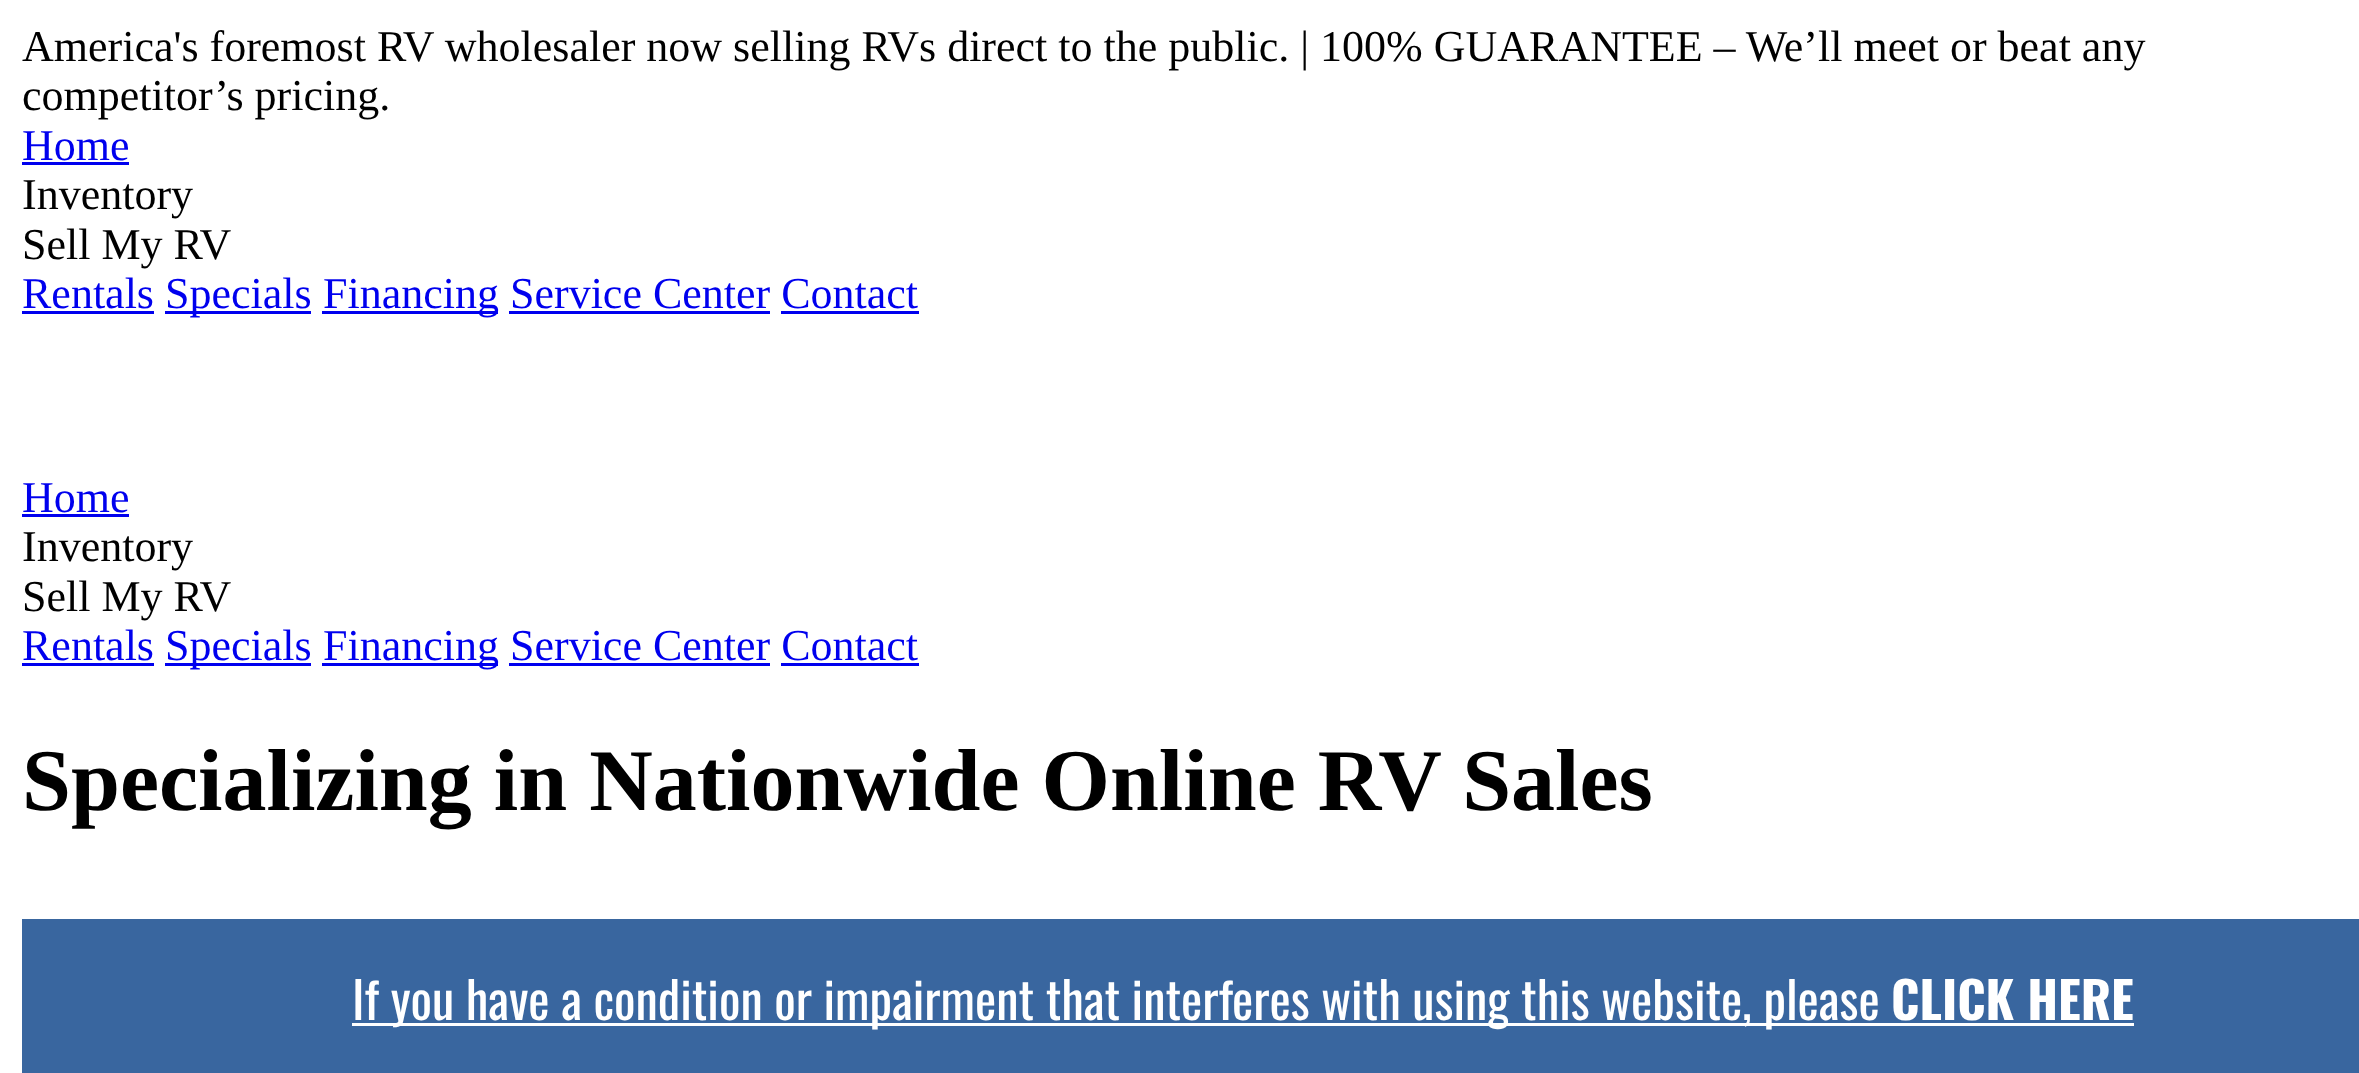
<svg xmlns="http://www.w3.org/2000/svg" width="2359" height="1073">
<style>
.a{font:44px Liberation Serif;fill:#000}
.b{font:44px Liberation Serif;fill:#00e}
.c{font:bold 88px Liberation Serif;fill:#000}
.d{font:50.6px Oswald;fill:#fff}
.e{font:bold 50.6px Oswald;fill:#fff}
</style>
<rect width="100%" height="100%" fill="#fff"/>
<path fill="#00e" d="M22 162h107v3H22z"/>
<path fill="#00e" d="M22 311h132v3H22z"/>
<path fill="#00e" d="M165 311h146v3H165z"/>
<path fill="#00e" d="M322 311h176v3H322z"/>
<path fill="#00e" d="M509 311h261v3H509z"/>
<path fill="#00e" d="M781 311h138v3H781z"/>
<path fill="#00e" d="M22 514h107v3H22z"/>
<path fill="#00e" d="M22 663h132v3H22z"/>
<path fill="#00e" d="M165 663h146v3H165z"/>
<path fill="#00e" d="M322 663h176v3H322z"/>
<path fill="#00e" d="M509 663h261v3H509z"/>
<path fill="#00e" d="M781 663h138v3H781z"/>
<path fill="#39669f" d="M22 919h2337v154H22z"/>
<path fill="#fff" d="M352 1023h1782v3H352z"/>
<text class="a" x="22" y="61">America's foremost RV wholesaler now selling RVs direct to the public. | 100% GUARANTEE – We’ll meet or beat any</text>
<text class="a" x="22" y="110">competitor’s pricing.</text>
<text class="b" x="22" y="160">Home</text>
<text class="a" x="22" y="209">Inventory</text>
<text class="a" x="22" y="259">Sell My RV</text>
<text class="b" x="22" y="308">Rentals</text>
<text class="b" x="165" y="308">Specials</text>
<text class="b" x="323" y="308">Financing Service Center Contact</text>
<text class="b" x="22" y="512">Home</text>
<text class="a" x="22" y="561">Inventory</text>
<text class="a" x="22" y="611">Sell My RV</text>
<text class="b" x="22" y="660">Rentals</text>
<text class="b" x="165" y="660">Specials</text>
<text class="b" x="323" y="660">Financing Service Center Contact</text>
<text class="c" x="22" y="810">Specializing in Nationwide Online RV Sales</text>
<text class="d" x="352" y="1020">If you have a condition or impairment that interferes with using this website, please</text>
<text class="e" x="1891" y="1020">CLICK HERE</text>
</svg>
